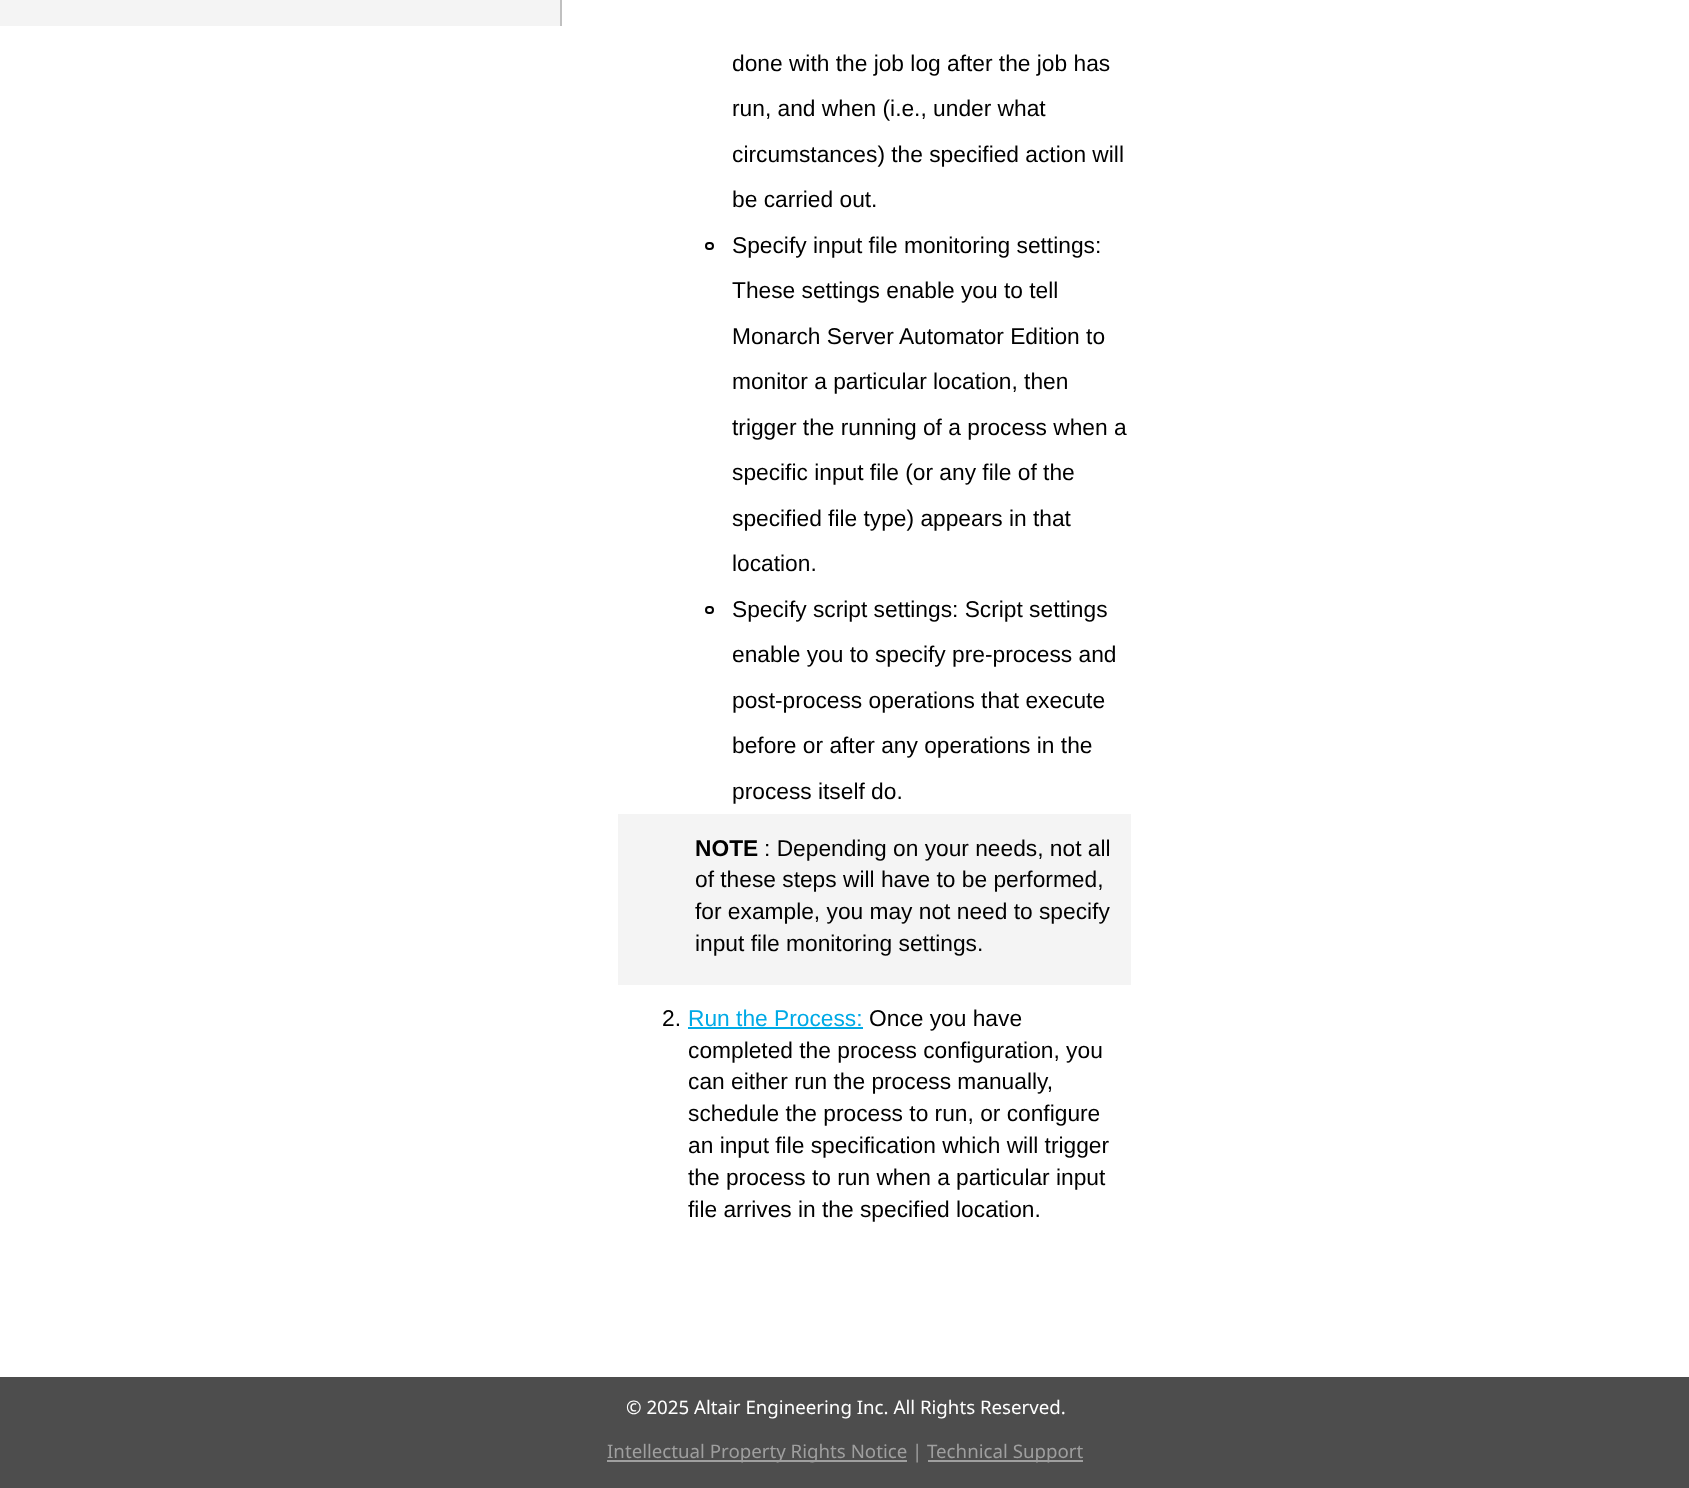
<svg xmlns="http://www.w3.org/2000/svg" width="1689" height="1488">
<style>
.a{font:22.75px Liberation Sans;fill:#000}
.b{font:bold 22.75px Liberation Sans;fill:#000}
.c{font:22.75px Liberation Sans;fill:#00aae6}
.d{font:18.7px Noto Sans;fill:#fff}
.e{font:18.7px Noto Sans;fill:#9f9f9f}
</style>
<rect width="100%" height="100%" fill="#fff"/>
<path fill="#f4f4f4" d="M0 0h560v26H0z"/>
<path fill="#c0c0c0" d="M560 0h2v26H560z"/>
<rect fill="none" stroke="#000" stroke-width="2" x="706" y="243" width="7" height="6" rx="3"/>
<rect fill="none" stroke="#000" stroke-width="2" x="706" y="607" width="7" height="6" rx="3"/>
<path fill="#f4f4f4" d="M618 814h513v171H618z"/>
<path fill="#00aae6" d="M688 1027h175v2H688z"/>
<path fill="#4d4d4d" d="M0 1377h1689v111H0z"/>
<path fill="#9f9f9f" d="M607 1460h300v2H607z"/>
<path fill="#9f9f9f" d="M928 1460h155v2H928z"/>
<text class="a" x="732" y="71">done with the job log after the job has</text>
<text class="a" x="732" y="116">run, and when (i.e., under what</text>
<text class="a" x="732" y="162">circumstances) the specified action will</text>
<text class="a" x="732" y="207">be carried out.</text>
<text class="a" x="732" y="253">Specify input file monitoring settings:</text>
<text class="a" x="732" y="298">These settings enable you to tell</text>
<text class="a" x="732" y="344">Monarch Server Automator Edition to</text>
<text class="a" x="732" y="389">monitor a particular location, then</text>
<text class="a" x="732" y="435">trigger the running of a process when a</text>
<text class="a" x="732" y="480">specific input file (or any file of the</text>
<text class="a" x="732" y="526">specified file type) appears in that</text>
<text class="a" x="732" y="571">location.</text>
<text class="a" x="732" y="617">Specify script settings: Script settings</text>
<text class="a" x="732" y="662">enable you to specify pre-process and</text>
<text class="a" x="732" y="708">post-process operations that execute</text>
<text class="a" x="732" y="753">before or after any operations in the</text>
<text class="a" x="732" y="799">process itself do.</text>
<text class="b" x="695" y="856">NOTE</text>
<text class="a" x="764" y="856">: Depending on your needs, not all</text>
<text class="a" x="695" y="887">of these steps will have to be performed,</text>
<text class="a" x="695" y="919">for example, you may not need to specify</text>
<text class="a" x="695" y="951">input file monitoring settings.</text>
<text class="a" x="662" y="1026">2.</text>
<text class="c" x="688" y="1026">Run the Process:</text>
<text class="a" x="869" y="1026">Once you have</text>
<text class="a" x="688" y="1058">completed the process configuration, you</text>
<text class="a" x="688" y="1089">can either run the process manually,</text>
<text class="a" x="688" y="1121">schedule the process to run, or configure</text>
<text class="a" x="688" y="1153">an input file specification which will trigger</text>
<text class="a" x="688" y="1185">the process to run when a particular input</text>
<text class="a" x="688" y="1217">file arrives in the specified location.</text>
<text class="d" x="626" y="1414">© 2025 Altair Engineering Inc. All Rights Reserved.</text>
<text class="e" x="607" y="1458">Intellectual Property Rights Notice |</text>
<text class="e" x="927" y="1458">Technical Support</text>
</svg>
